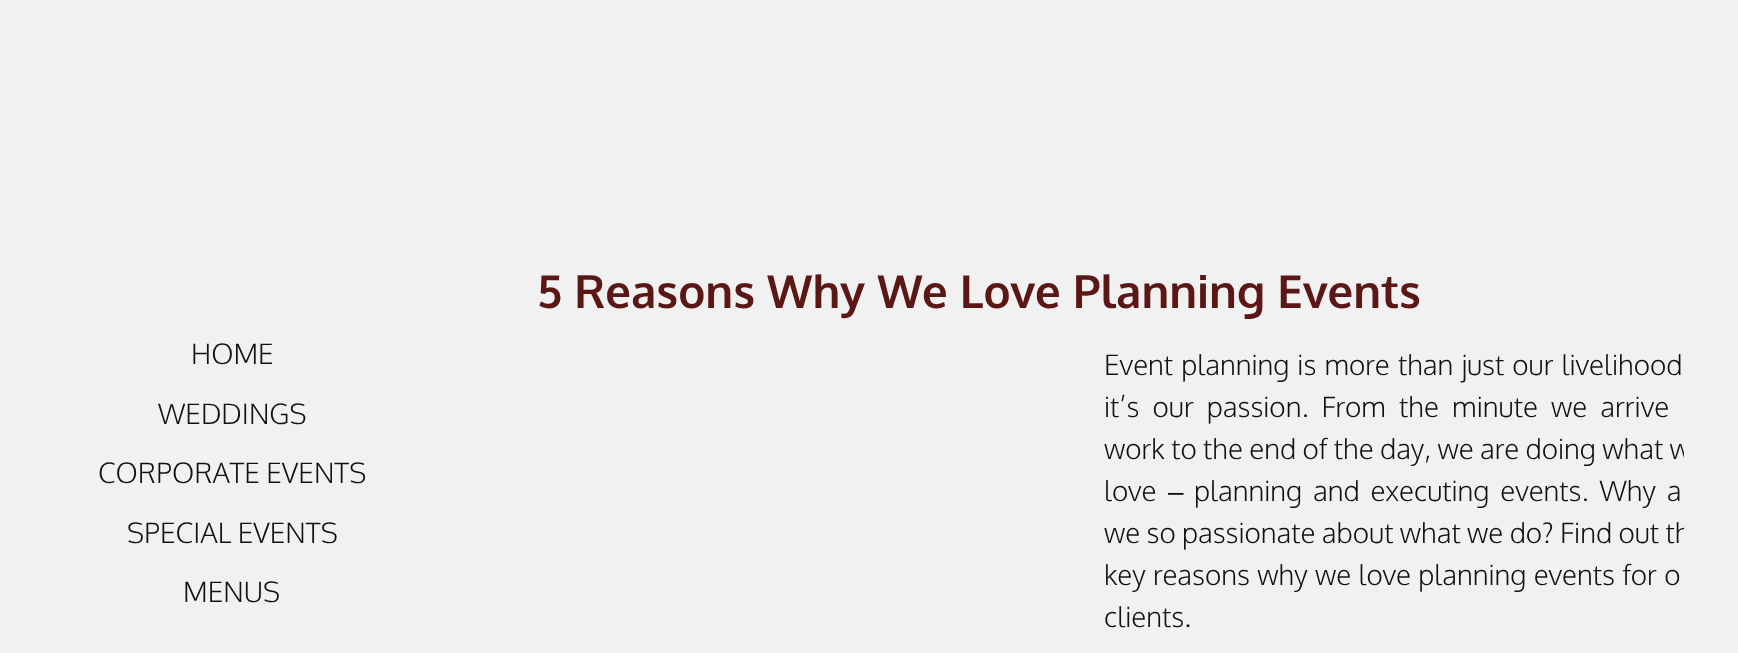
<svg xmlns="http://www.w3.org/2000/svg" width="1738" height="653">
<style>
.a{font:300 28px Oxygen;fill:#111}
.b{font:bold 45.5px Oxygen;fill:#5b1616}
.c{font:28px Liberation Sans;fill:#111}
</style>
<defs>
<clipPath id="clip1"><path d="M56 0h1628v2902H56z"/></clipPath>
</defs>
<rect width="100%" height="100%" fill="#f1f1f1"/>
<text class="a" x="191" y="364">HOME</text>
<text class="a" x="158" y="424">WEDDINGS</text>
<text class="a" x="98" y="483">CORPORATE EVENTS</text>
<text class="a" x="127" y="543">SPECIAL EVENTS</text>
<text class="a" x="183" y="602">MENUS</text>
<text class="b" x="537" y="308">5 Reasons Why We Love Planning Events</text>
<text class="a" x="1104" y="375" word-spacing="1.75">Event planning is more than just our livelihood</text>
<text class="a" x="1104" y="417" word-spacing="6.75">it’s our passion. From the minute we arrive</text>
<g clip-path="url(#clip1)">
<text class="a" x="1104" y="459">work to the end of the day, we are doing what w</text>
</g>
<text class="a" x="1104" y="501">love</text>
<text class="c" x="1168" y="501">–</text>
<text class="a" x="1194" y="501" word-spacing="4.5">planning and executing events. Why a</text>
<g clip-path="url(#clip1)">
<text class="a" x="1104" y="543">we so passionate about what we do? Find out th</text>
</g>
<text class="a" x="1104" y="585" word-spacing="1">key reasons why we love planning events for o</text>
<text class="a" x="1104" y="627">clients.</text>
</svg>
